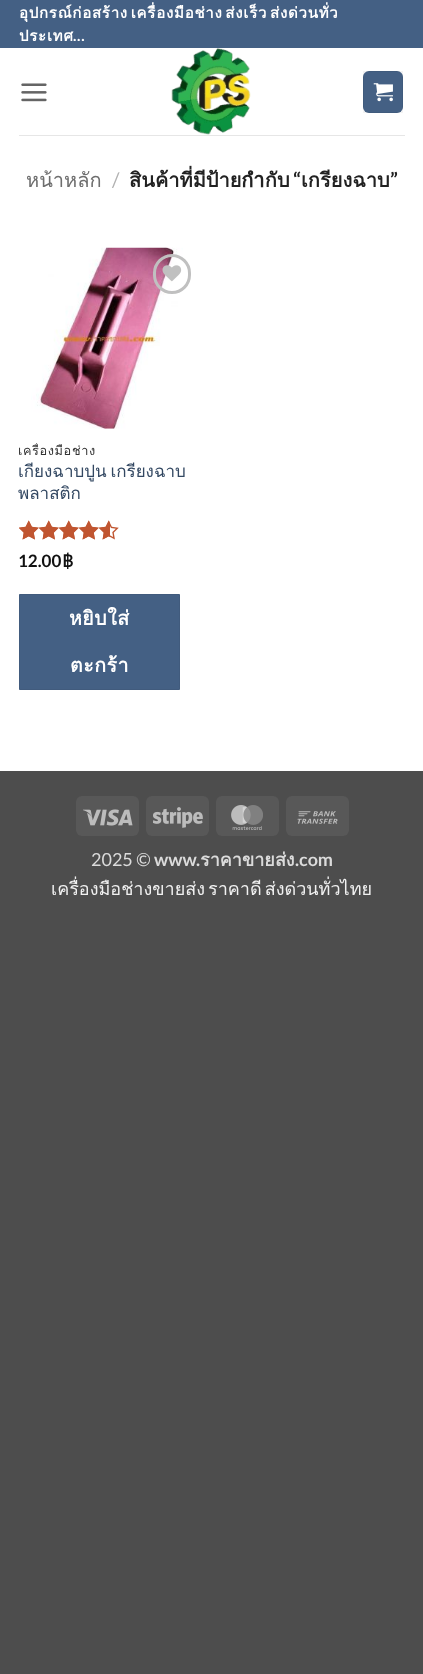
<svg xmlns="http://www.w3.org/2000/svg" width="423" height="1674">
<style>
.a{font:bold 15px Loma;letter-spacing:0.75px;fill:#fff}
.b{font:bold 15px Lato;letter-spacing:0.75px;fill:#fff}
.c{font:20px Loma;fill:#6e6e6e}
.d{font:bold 20px Loma;fill:#222}
.e{font:20px Lato;fill:#b2b2b2}
.f{font:bold 20px Lato;fill:#222}
.g{font:12.75px Loma;letter-spacing:0.6px;fill:#333}
.h{font:17px Loma;fill:#334862}
.i{font:bold 17px Lato;fill:#111}
.j{font:bold 17px 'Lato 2';fill:#111}
.k{font:bold 19.5px Loma;letter-spacing:0.5px;fill:#fff}
.l{font:18px Lato;fill:#dbdbdb}
.m{font:bold 18px Lato;fill:#dbdbdb}
.n{font:bold 18px Loma;fill:#dbdbdb}
.o{font:18px Loma;fill:#f1f1f1}
</style>
<defs>
<clipPath id="clip1"><path d="M19 443h181v15H19z"/></clipPath>
</defs>
<rect width="100%" height="100%" fill="#4d4d4d"/>
<path fill="#fff" d="M0 48h423v723H0z"/>
<path fill="#446084" d="M0 0h423v48H0z"/>
<image href="1.png" x="21" y="83" width="26" height="19"/>
<image href="2.png" x="171" y="48" width="80" height="87"/>
<rect fill="#446084" x="363" y="71" width="40" height="42" rx="6"/>
<path fill="none" stroke="#0000000d" d="M363.5 71.5h39v41H363.5z"/>
<image href="3.png" x="373" y="83" width="20" height="19"/>
<path fill="#e6e6e6" d="M19 135h386v1H19z"/>
<image href="4.png" x="31" y="247" width="152" height="182"/>
<rect fill="none" stroke="#c0c0c0" stroke-width="3" x="154.5" y="255.5" width="35" height="37" rx="17.5"/>
<image href="5.png" x="162" y="265" width="20" height="17"/>
<image href="6.png" x="19" y="520" width="100" height="20"/>
<image href="7.png" x="19" y="520" width="91" height="20"/>
<path fill="#446084" stroke="#415b7d" d="M19.5 594.5h160v95H19.5z"/>
<rect fill="#585858" x="76" y="796" width="63" height="40" rx="6"/>
<image href="8.png" x="83" y="809" width="50" height="17"/>
<rect fill="#585858" x="146" y="796" width="63" height="40" rx="6"/>
<image href="9.png" x="153" y="807" width="50" height="21"/>
<rect fill="#585858" x="216" y="796" width="63" height="40" rx="6"/>
<image href="10.png" x="231" y="805" width="32" height="25"/>
<rect fill="#585858" x="286" y="796" width="63" height="40" rx="6"/>
<image href="11.png" x="297" y="811" width="41" height="13"/>
<text class="a" x="19" y="18" word-spacing="-3">อุปกรณ์ก่อสร้าง เครื่องมือช่าง ส่งเร็ว ส่งด่วนทั่ว</text>
<text class="a" x="19" y="41">ประเทศ</text>
<text class="b" x="73" y="41">...</text>
<text class="c" x="26" y="187">หน้าหลัก</text>
<text class="d" x="129" y="187">สินค้าที่มีป้ายกำกับ</text>
<text class="e" x="112" y="187">/</text>
<text class="f" x="293" y="187">“</text>
<text class="d" x="301" y="187">เกรียงฉาบ</text>
<text class="f" x="390" y="187">”</text>
<g clip-path="url(#clip1)">
<text class="g" x="18" y="455">เครื่องมือช่าง</text>
</g>
<text class="h" x="18" y="477" word-spacing="-2">เกียงฉาบปูน เกรียงฉาบ</text>
<text class="h" x="18" y="499">พลาสติก</text>
<text class="i" x="18" y="567">12.00</text>
<text class="j" x="62" y="567">฿</text>
<text class="k" x="69" y="625">หยิบใส่</text>
<text class="k" x="70" y="672">ตะกร้า</text>
<text class="l" x="91" y="866">2025 ©</text>
<text class="m" x="154" y="866">www.</text>
<text class="n" x="200" y="866">ราคาขายส่ง</text>
<text class="m" x="295" y="866">.com</text>
<text class="o" x="51" y="895" word-spacing="-3">เครื่องมือช่างขายส่ง ราคาดี ส่งด่วนทั่วไทย</text>
</svg>
